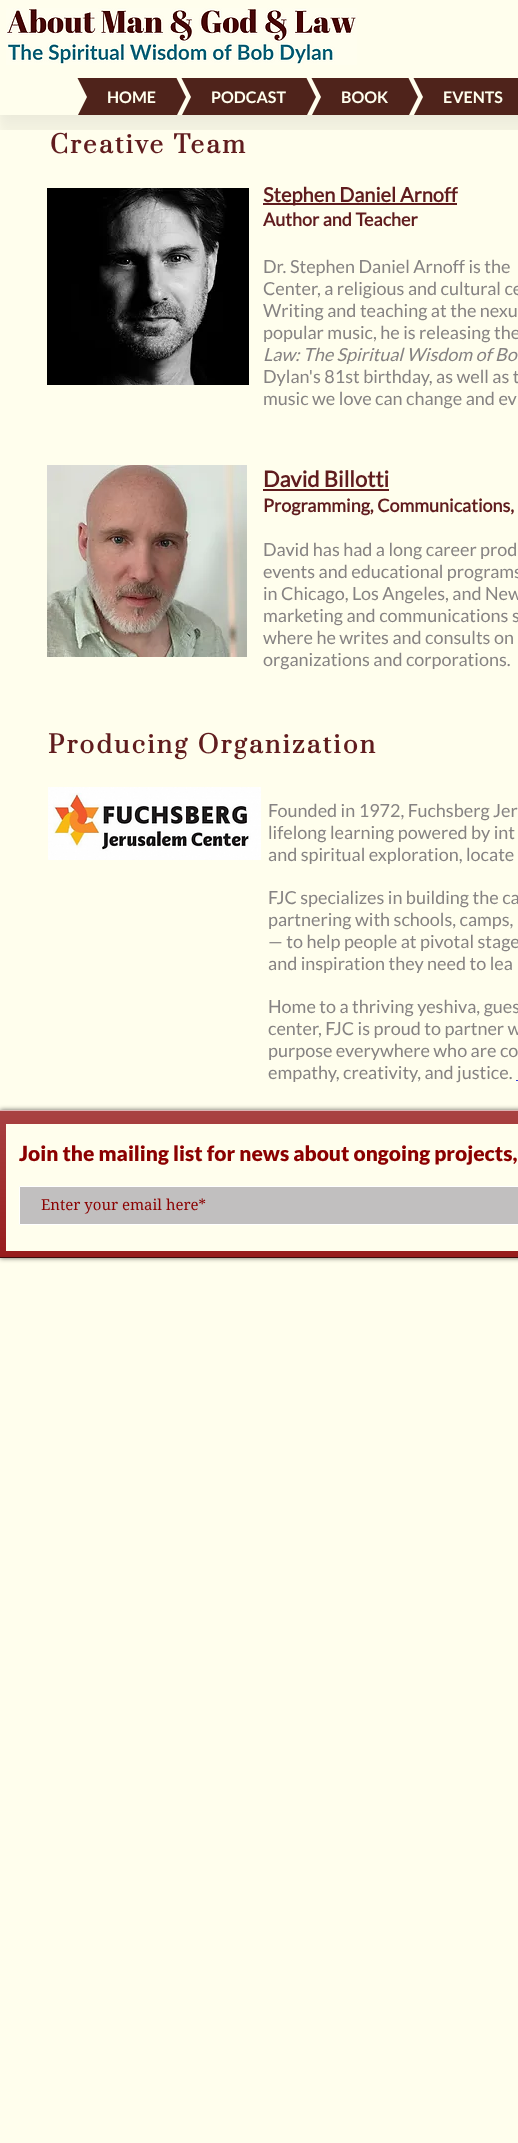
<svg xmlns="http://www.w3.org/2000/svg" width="518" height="2143">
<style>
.a{font:bold 16px Lato;fill:#fffeed}
.b{font:bold 24px Prata;letter-spacing:2.4px;fill:#601c1e}
.c{font:bold 20px 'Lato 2';fill:#601c1e}
.d{font:bold 18px 'Lato 2';fill:#601c1e}
.e{font:18px Lato;fill:#868383}
.f{font:italic 18px Lato;fill:#868383}
.g{font:bold 22px 'Lato 2';fill:#601c1e}
.h{font:900 21px Lato;fill:#8b0000}
.i{font:15px 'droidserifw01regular';fill:#8b0000}
</style>
<defs>
<clipPath id="clip1"><path d="M17 78h70v37H17z"/></clipPath>
<clipPath id="clip2"><path d="M116 78h70v37H116z"/></clipPath>
<clipPath id="clip3"><path d="M121 78h70v37H121z"/></clipPath>
<clipPath id="clip4"><path d="M246 78h70v37H246z"/></clipPath>
<clipPath id="clip5"><path d="M251 78h70v37H251z"/></clipPath>
<clipPath id="clip6"><path d="M348 78h70v37H348z"/></clipPath>
<clipPath id="clip7"><path d="M353 78h70v37H353z"/></clipPath>
<clipPath id="clip8"><path d="M463 78h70v37H463z"/></clipPath>
</defs>
<rect width="100%" height="100%" fill="#fffeed"/>
<image href="1.png" x="6" y="8" width="351" height="57"/>
<g clip-path="url(#clip1)">
<path fill="#4f231b" d="M17-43h70v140zm70 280h-70l70-140z"/>
</g>
<path fill="#4f231b" d="M87 78h29v37H87z"/>
<g clip-path="url(#clip2)">
<path fill="#4f231b" d="M186 97h-70v-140z"/>
<path fill="#4f231b" d="M116 97h70l-70 140z"/>
</g>
<g clip-path="url(#clip3)">
<path fill="#4f231b" d="M121-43h70v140zm70 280h-70l70-140z"/>
</g>
<path fill="#4f231b" d="M191 78h55v37H191z"/>
<g clip-path="url(#clip4)">
<path fill="#4f231b" d="M316 97h-70v-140z"/>
<path fill="#4f231b" d="M246 97h70l-70 140z"/>
</g>
<g clip-path="url(#clip5)">
<path fill="#4f231b" d="M251-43h70v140zm70 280h-70l70-140z"/>
</g>
<path fill="#4f231b" d="M321 78h27v37H321z"/>
<g clip-path="url(#clip6)">
<path fill="#4f231b" d="M418 97h-70v-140z"/>
<path fill="#4f231b" d="M348 97h70l-70 140z"/>
</g>
<g clip-path="url(#clip7)">
<path fill="#4f231b" d="M353-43h70v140zm70 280h-70l70-140z"/>
</g>
<path fill="#4f231b" d="M423 78h40v37H423z"/>
<g clip-path="url(#clip8)">
<path fill="#4f231b" d="M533 97h-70v-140zm-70 0h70l-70 140z"/>
</g>
<image href="2.png" x="0" y="115" width="35" height="15"/>
<image href="3.png" x="35" y="115" width="483" height="15"/>
<image href="4.png" x="47" y="188" width="202" height="197"/>
<path fill="#601c1e" d="M263 203h194v2H263z"/>
<image href="5.png" x="47" y="465" width="200" height="192"/>
<path fill="#601c1e" d="M263 489h126v2H263z"/>
<image href="6.png" x="48" y="787" width="213" height="73"/>
<path fill="#3344d6" d="M516 1080h2v1H516z"/>
<path fill="#00000099" filter="blur(2.5px)" d="M0 1110h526v148H0z"/>
<path fill="#8b0000" d="M0 1111h518v146H0z"/>
<image href="7.png" x="0" y="1111" width="518" height="146"/>
<path fill="#3d0b0b" d="M0 1257h518v1H0z"/>
<path fill="#ddb3b3" d="M0 1110h518v1H0z"/>
<path fill="#fffeed" d="M6 1124h512v127H6z"/>
<path fill="#c1bfbf" stroke="#fff" d="M19.5 1186.5h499v38H19.5z"/>
<text class="a" x="107" y="103">HOME</text>
<text class="a" x="211" y="103">PODCAST</text>
<text class="a" x="341" y="103">BOOK</text>
<text class="a" x="443" y="103">EVENTS</text>
<text class="b" x="50" y="153">Creative Team</text>
<text class="c" x="263" y="202">Stephen Daniel Arnoff</text>
<text class="d" x="263" y="226">Author and Teacher</text>
<text class="e" x="263" y="273">Dr. Stephen Daniel Arnoff is the</text>
<text class="e" x="263" y="295">Center, a religious and cultural ce</text>
<text class="e" x="263" y="317">Writing and teaching at the nexu</text>
<text class="e" x="263" y="339">popular music, he is releasing the</text>
<text class="f" x="263" y="361">Law: The Spiritual Wisdom of Bo</text>
<text class="e" x="263" y="383">Dylan's 81st birthday, as well as t</text>
<text class="e" x="263" y="405">music we love can change and ev</text>
<text class="g" x="263" y="487">David Billotti</text>
<text class="d" x="263" y="512">Programming, Communications,</text>
<text class="e" x="263" y="556">David has had a long career prod</text>
<text class="e" x="263" y="578">events and educational programs</text>
<text class="e" x="263" y="600">in Chicago, Los Angeles, and New</text>
<text class="e" x="263" y="622">marketing and communications s</text>
<text class="e" x="263" y="644">where he writes and consults on</text>
<text class="e" x="263" y="666">organizations and corporations.</text>
<text class="b" x="48" y="753">Producing Organization</text>
<text class="e" x="268" y="817">Founded in 1972, Fuchsberg Jer</text>
<text class="e" x="268" y="839">lifelong learning powered by int</text>
<text class="e" x="268" y="861">and spiritual exploration, locate</text>
<text class="e" x="268" y="904">FJC specializes in building the ca</text>
<text class="e" x="268" y="926">partnering with schools, camps,</text>
<text class="e" x="268" y="948">— to help people at pivotal stage</text>
<text class="e" x="268" y="970">and inspiration they need to lea</text>
<text class="e" x="268" y="1013">Home to a thriving yeshiva, gues</text>
<text class="e" x="268" y="1035">center, FJC is proud to partner w</text>
<text class="e" x="268" y="1057">purpose everywhere who are co</text>
<text class="e" x="268" y="1079">empathy, creativity, and justice.</text>
<text class="h" x="19" y="1161">Join the mailing list for news about ongoing projects,</text>
<text class="i" x="41" y="1210">Enter your email here*</text>
</svg>
